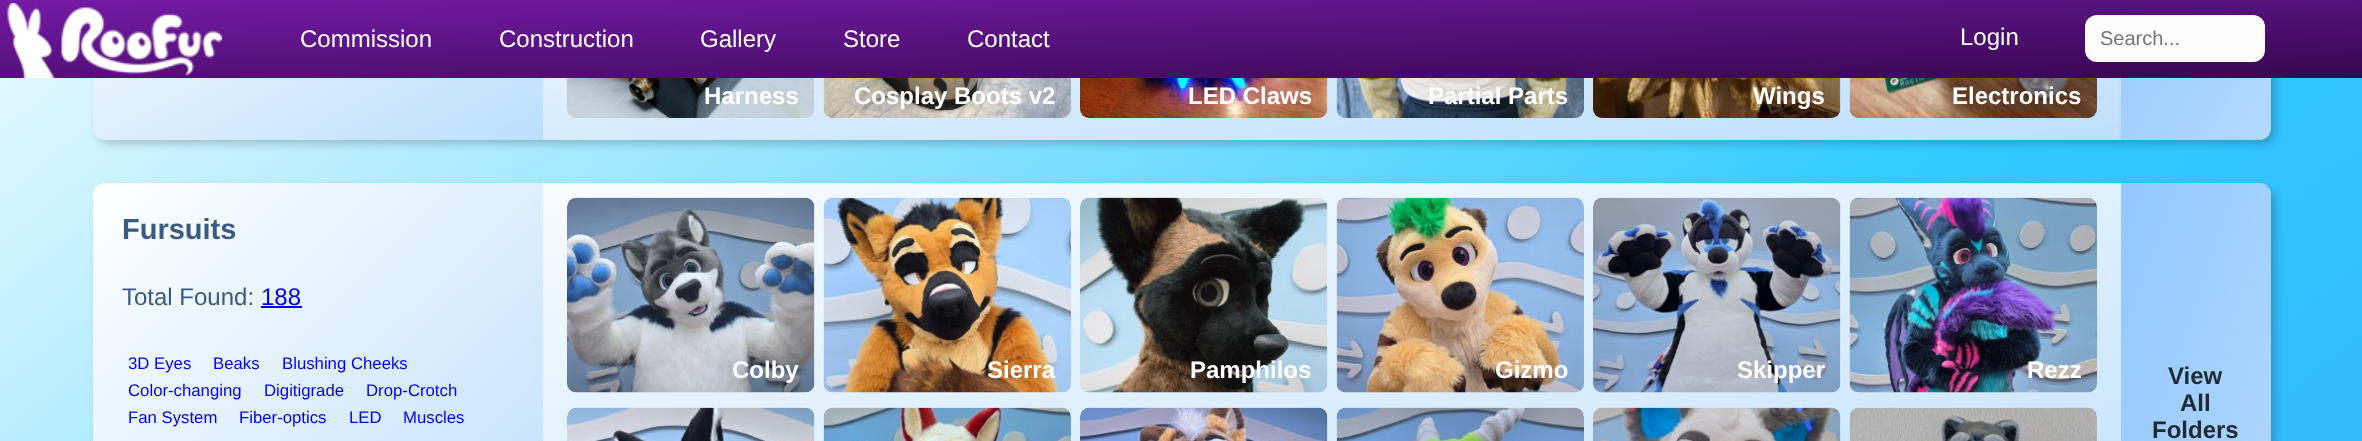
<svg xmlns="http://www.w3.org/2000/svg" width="2362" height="441">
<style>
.a{font:24px Liberation Sans;fill:#fff}
.b{font:20px Liberation Sans;fill:#757575}
.c{font:bold 24px Liberation Sans;fill:#fff}
.d{font:bold 29px Liberation Sans;fill:#395a83}
.e{font:24px Liberation Sans;fill:#395a83}
.f{font:24px Liberation Sans;fill:#00e}
.g{font:16.75px Liberation Sans;fill:#00e}
.h{font:bold 24px Liberation Sans;fill:#202a33}
</style>
<defs>
<linearGradient id="g1" gradientUnits="userSpaceOnUse" x1="210" y1="-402" x2="2153" y2="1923"><stop offset="0" stop-color="#fff"/><stop offset="0.5" stop-color="#3cf"/><stop offset="1" stop-color="#39f"/></linearGradient>
<linearGradient id="g2" gradientUnits="userSpaceOnUse" x1="1158" y1="-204" x2="1206" y2="252"><stop offset="0" stop-color="#fff"/><stop offset="1" stop-color="#bbdefb"/></linearGradient>
<linearGradient id="g3" gradientUnits="userSpaceOnUse" x1="224" y1="-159" x2="412" y2="207"><stop offset="0" stop-color="#fff"/><stop offset="1" stop-color="#bbdefb"/></linearGradient>
<clipPath id="clip1"><rect x="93" y="-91" width="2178" height="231" rx="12"/></clipPath>
<linearGradient id="g4" gradientUnits="userSpaceOnUse" x1="2090" y1="-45" x2="2302" y2="93"><stop offset="0" stop-color="#91c8ff"/><stop offset="1" stop-color="#b3d9ff"/></linearGradient>
<linearGradient id="g5" gradientUnits="userSpaceOnUse" x1="1179" y1="-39" x2="1184" y2="117"><stop offset="0" stop-color="#751ba6"/><stop offset="1" stop-color="#36074f"/></linearGradient>
<linearGradient id="g6" gradientUnits="userSpaceOnUse" x1="1096" y1="-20" x2="1268" y2="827"><stop offset="0" stop-color="#fff"/><stop offset="1" stop-color="#bbdefb"/></linearGradient>
<linearGradient id="g7" gradientUnits="userSpaceOnUse" x1="98" y1="179" x2="538" y2="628"><stop offset="0" stop-color="#fff"/><stop offset="1" stop-color="#bbdefb"/></linearGradient>
<linearGradient id="g8" gradientUnits="userSpaceOnUse" x1="2062" y1="358" x2="2330" y2="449"><stop offset="0" stop-color="#91c8ff"/><stop offset="1" stop-color="#b3d9ff"/></linearGradient>
</defs>
<rect width="100%" height="100%" fill="#fff"/>
<path fill="url(#g1)" d="M0 78h2362v363H0z"/>
<rect fill="#00000033" filter="blur(4px)" x="98" y="-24" width="2178" height="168" rx="12"/>
<rect fill="url(#g2)" x="93" y="-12" width="2178" height="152" rx="12"/>
<path fill="url(#g3)" d="M105-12h438v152h-438c-6.5 0-12-5.5-12-12v-128c0-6.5 5.5-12 12-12z"/>
<g clip-path="url(#clip1)">
<path fill="#00000033" filter="blur(4px)" d="M2126 -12h150v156H2126z"/>
</g>
<path fill="url(#g4)" d="M2121-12h138c6.5 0 12 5.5 12 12v128c0 6.5-5.5 12-12 12h-138z"/>
<path fill="url(#g5)" d="M0 0h2362v78H0z"/>
<image href="1.png" x="7" y="3" width="216" height="75"/>
<rect fill="#fcfcfc" x="2085" y="15" width="180" height="47" rx="12"/>
<image href="2.png" x="567" y="78" width="248" height="40"/>
<image href="3.png" x="823" y="78" width="248" height="40"/>
<image href="4.png" x="1080" y="78" width="248" height="40"/>
<image href="5.png" x="1336" y="78" width="248" height="40"/>
<image href="6.png" x="1593" y="78" width="248" height="40"/>
<image href="7.png" x="1849" y="78" width="248" height="40"/>
<rect fill="#00000033" filter="blur(4px)" x="98" y="188" width="2178" height="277" rx="12"/>
<rect fill="url(#g6)" x="93" y="183" width="2178" height="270" rx="12"/>
<path fill="url(#g7)" d="M105 183h438v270h-438c-6.5 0-12-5.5-12-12v-246c0-6.5 5.5-12 12-12z"/>
<path fill="#00e" d="M261 306h41v2H261z"/>
<image href="8.png" x="567" y="197" width="248" height="196"/>
<image href="9.png" x="823" y="197" width="248" height="196"/>
<image href="10.png" x="1080" y="197" width="248" height="196"/>
<image href="11.png" x="1336" y="197" width="248" height="196"/>
<image href="12.png" x="1593" y="197" width="248" height="196"/>
<image href="13.png" x="1849" y="197" width="248" height="196"/>
<image href="14.png" x="567" y="407" width="248" height="34"/>
<image href="15.png" x="823" y="407" width="248" height="34"/>
<image href="16.png" x="1080" y="407" width="248" height="34"/>
<image href="17.png" x="1336" y="407" width="248" height="34"/>
<image href="18.png" x="1593" y="407" width="248" height="34"/>
<image href="19.png" x="1849" y="407" width="248" height="34"/>
<path fill="url(#g8)" d="M2121 183h138c6.5 0 12 5.5 12 12v246c0 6.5-5.5 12-12 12h-138z"/>
<text class="a" x="300" y="47">Commission</text>
<text class="a" x="499" y="47">Construction</text>
<text class="a" x="700" y="47">Gallery</text>
<text class="a" x="843" y="47">Store</text>
<text class="a" x="967" y="47">Contact</text>
<text class="a" x="1960" y="45">Login</text>
<text class="b" x="2100" y="45">Search...</text>
<text class="c" x="704" y="104">Harness</text>
<text class="c" x="854" y="104">Cosplay Boots v2</text>
<text class="c" x="1188" y="104">LED Claws</text>
<text class="c" x="1428" y="104">Partial Parts</text>
<text class="c" x="1753" y="104">Wings</text>
<text class="c" x="1952" y="104">Electronics</text>
<text class="d" x="122" y="239">Fursuits</text>
<text class="e" x="122" y="305">Total Found:</text>
<text class="f" x="261" y="305">188</text>
<text class="g" x="128" y="369">3D Eyes</text>
<text class="g" x="213" y="369">Beaks</text>
<text class="g" x="282" y="369">Blushing Cheeks</text>
<text class="g" x="128" y="396">Color-changing</text>
<text class="g" x="264" y="396">Digitigrade</text>
<text class="g" x="366" y="396">Drop-Crotch</text>
<text class="g" x="128" y="423">Fan System</text>
<text class="g" x="239" y="423">Fiber-optics</text>
<text class="g" x="349" y="423">LED</text>
<text class="g" x="403" y="423">Muscles</text>
<text class="c" x="732" y="378">Colby</text>
<text class="c" x="987" y="378">Sierra</text>
<text class="c" x="1190" y="378">Pamphilos</text>
<text class="c" x="1495" y="378">Gizmo</text>
<text class="c" x="1737" y="378">Skipper</text>
<text class="c" x="2027" y="378">Rezz</text>
<text class="h" x="2168" y="384">View</text>
<text class="h" x="2180" y="411">All</text>
<text class="h" x="2152" y="438">Folders</text>
</svg>
